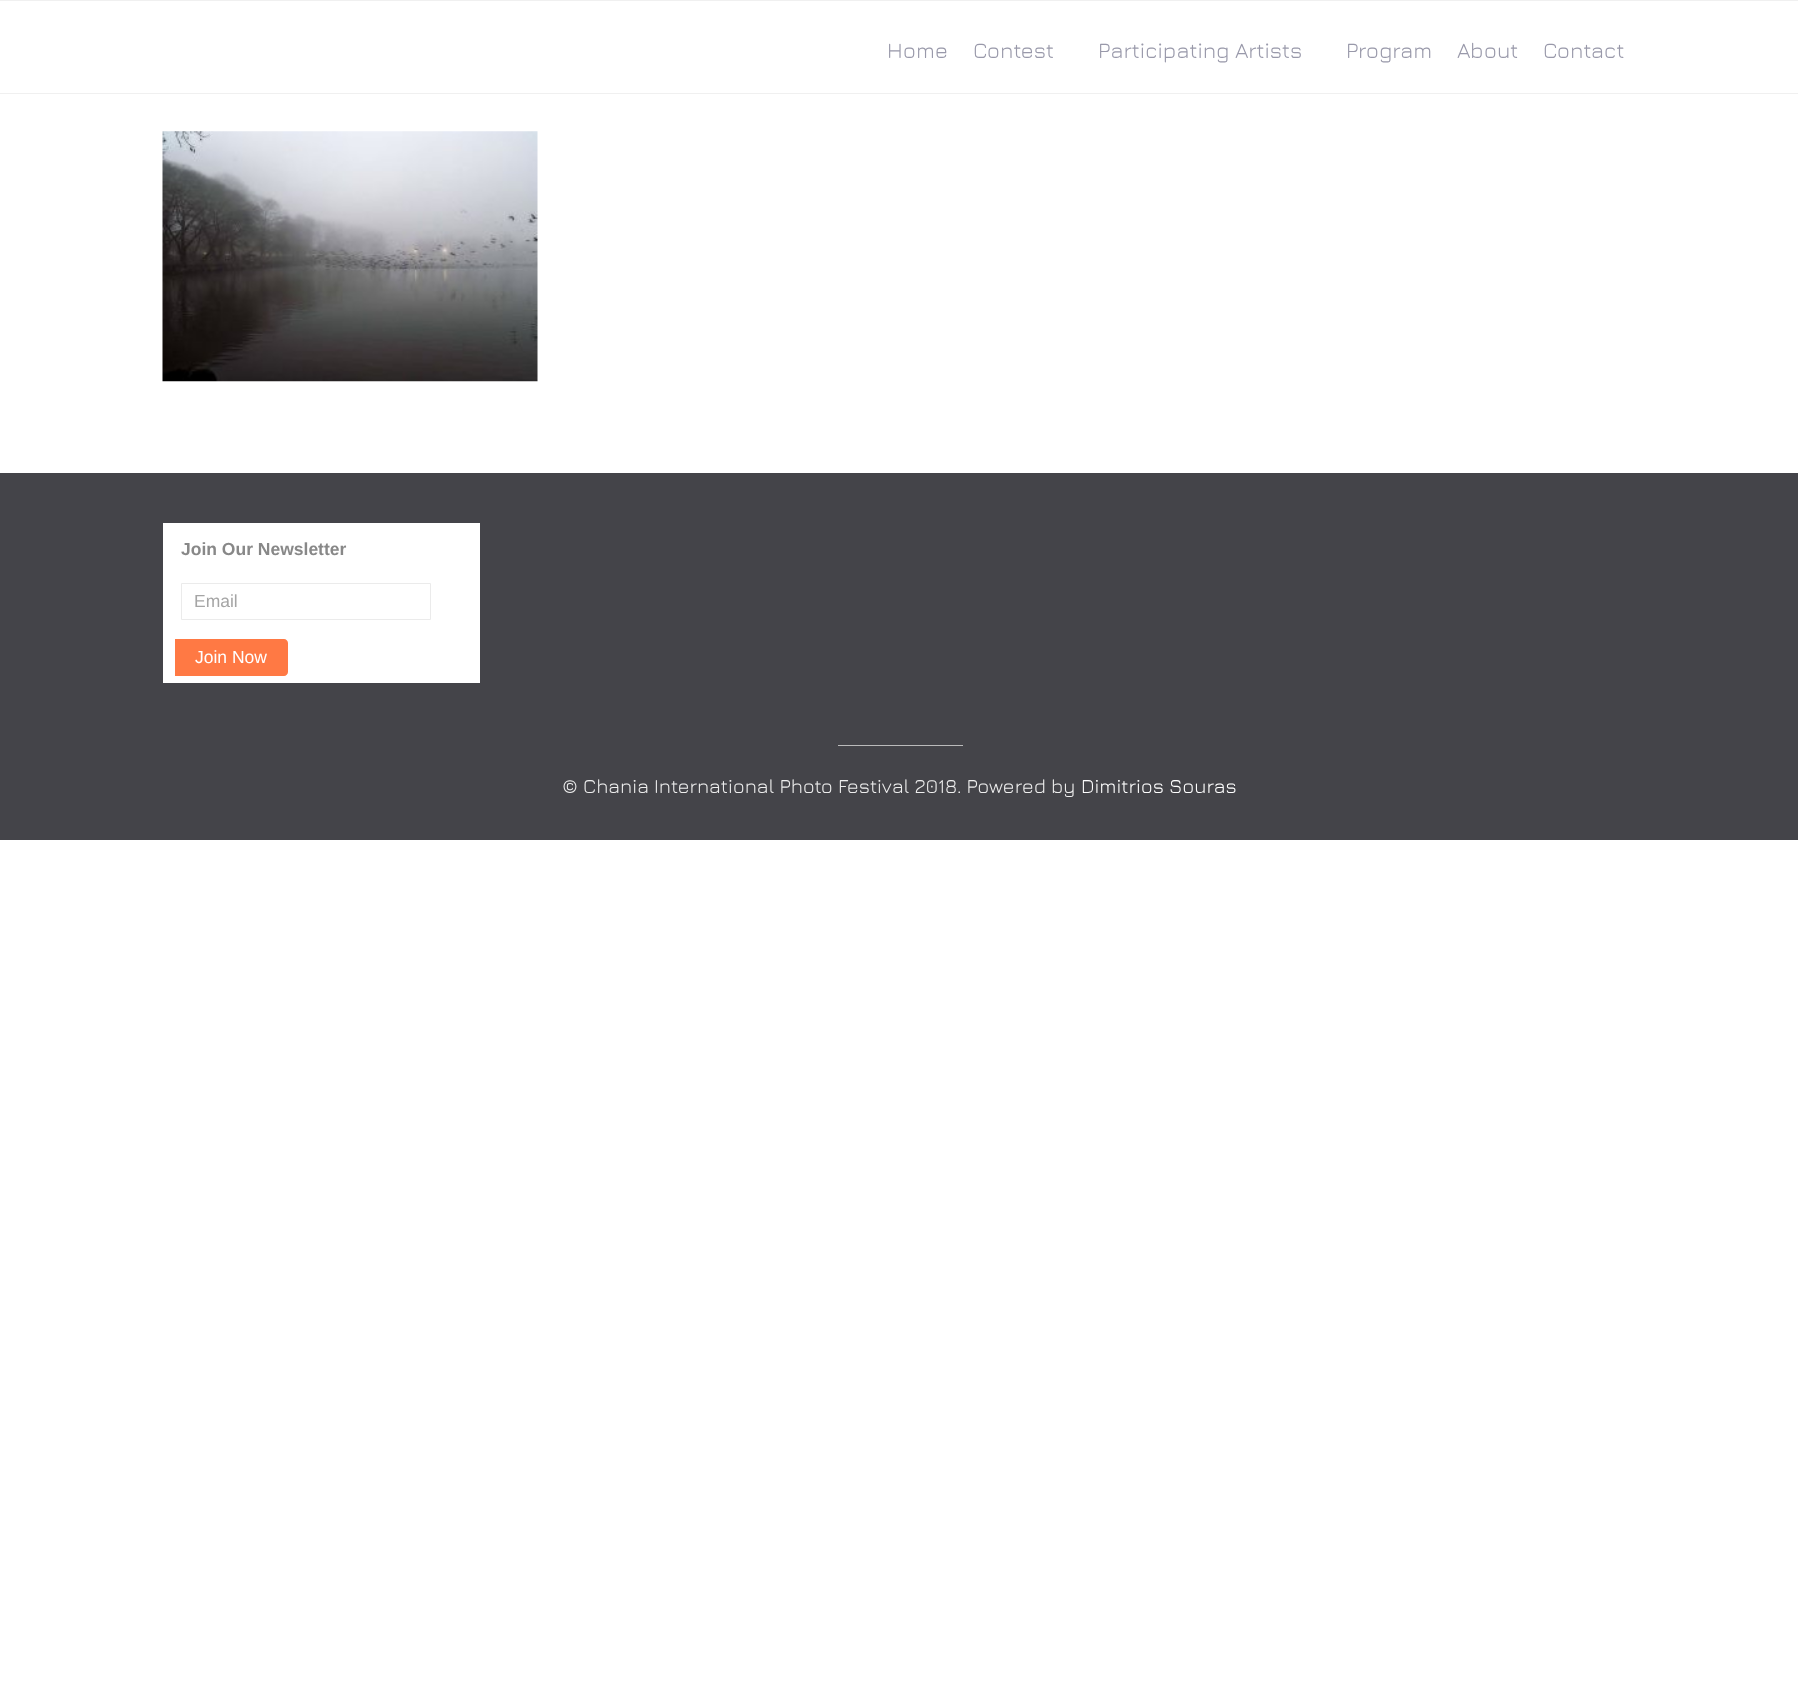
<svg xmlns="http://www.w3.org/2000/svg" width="1798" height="1690">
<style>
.a{font:300 22px Jura;fill:#99a}
.b{font:bold 17.5px Liberation Sans;fill:#888}
.c{font:17.5px Liberation Sans;fill:#a5a5a5}
.d{font:17.5px Liberation Sans;fill:#fff}
.e{font:300 20px Jura;fill:#eee}
.f{font:300 20px Jura;fill:#fff}
</style>
<rect width="100%" height="100%" fill="#fff"/>
<path fill="#f0f0f0" d="M0 0h1798v1H0z"/>
<path fill="#f0f0f0" d="M0 93h1798v1H0z"/>
<image href="1.png" x="162" y="131" width="376" height="251"/>
<path fill="#444449" d="M0 473h1798v367H0z"/>
<path fill="#fff" d="M163 523h317v160H163z"/>
<path fill="none" stroke="#ebebeb" d="M181.5 583.5h249v36H181.5z"/>
<path fill="#ff7944" d="M175 639h109c2 0 4 2 4 4v29c0 2-2 4-4 4h-109z"/>
<path fill="#bbb" d="M838 745h125v1H838z"/>
<text class="a" x="887" y="58">Home</text>
<text class="a" x="973" y="58">Contest</text>
<text class="a" x="1098" y="58">Participating Artists</text>
<text class="a" x="1346" y="58">Program</text>
<text class="a" x="1457" y="58">About</text>
<text class="a" x="1543" y="58">Contact</text>
<text class="b" x="181" y="555">Join Our Newsletter</text>
<text class="c" x="194" y="607">Email</text>
<text class="d" x="195" y="663">Join Now</text>
<text class="e" x="562" y="793">© Chania International Photo Festival 2018. Powered by</text>
<text class="f" x="1081" y="793">Dimitrios Souras</text>
</svg>
